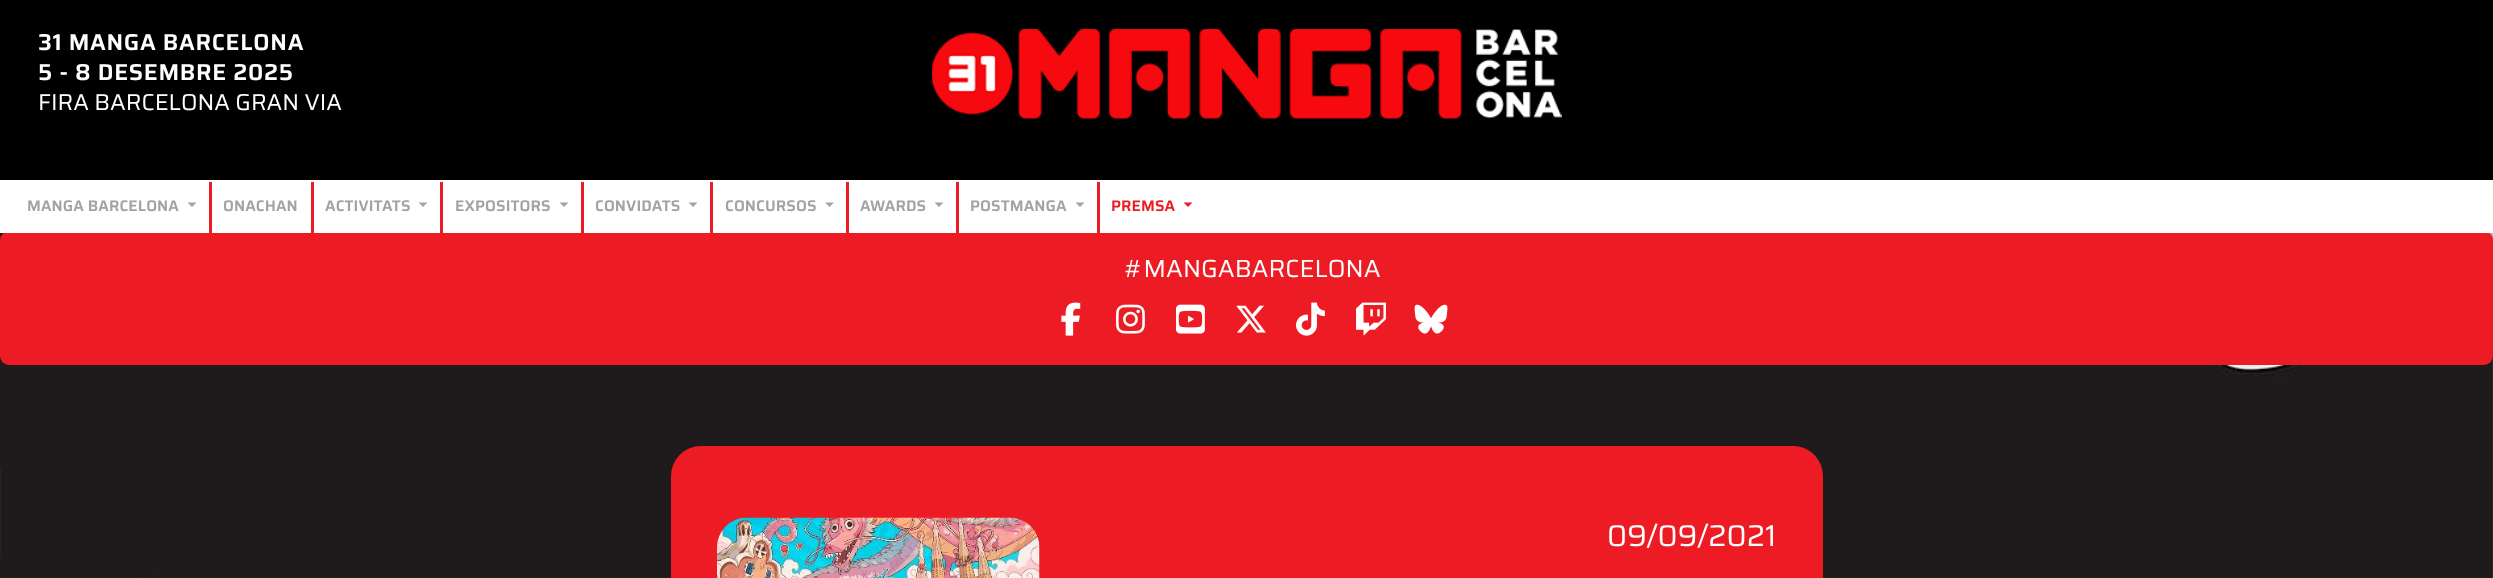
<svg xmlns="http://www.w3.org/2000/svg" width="2493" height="578">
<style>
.a{font:600 23px Saira;letter-spacing:0.7px;fill:#fff}
.b{font:23px Saira;fill:#fff}
.c{font:600 15.4px Saira;letter-spacing:0.1px;fill:#9fa4a6}
.d{font:600 15.4px Saira;letter-spacing:0.1px;fill:#ed1c24}
.e{font:24.75px Saira;fill:#fff}
.f{font:30px Saira;fill:#fff}
</style>
<rect width="100%" height="100%" fill="#fff"/>
<image href="1.png" x="0" y="233" width="2493" height="345"/>
<path fill="#000" d="M0 0h2493v180H0z"/>
<image href="2.png" x="932" y="29" width="630" height="90"/>
<rect fill="#ed1c24" y="231" width="2493" height="134" rx="9"/>
<path fill="#fff" d="M3 231h2487v2H3z"/>
<path fill="#ed1c24" d="M209 182h3v51H209z"/>
<path fill="#9fa4a6" d="M187.5 202.5h9l-4.5 4.5z"/>
<path fill="#ed1c24" d="M311 182h3v51H311z"/>
<path fill="#ed1c24" d="M440 182h3v51H440z"/>
<path fill="#9fa4a6" d="M418.5 202.5h9l-4.5 4.5z"/>
<path fill="#ed1c24" d="M581 182h3v51H581z"/>
<path fill="#9fa4a6" d="M559.5 202.5h9l-4.5 4.5z"/>
<path fill="#ed1c24" d="M710 182h3v51H710z"/>
<path fill="#9fa4a6" d="M688.5 202.5h9l-4.5 4.5z"/>
<path fill="#ed1c24" d="M846 182h3v51H846z"/>
<path fill="#9fa4a6" d="M825 202.5h9l-4.5 4.5z"/>
<path fill="#ed1c24" d="M956 182h3v51H956z"/>
<path fill="#9fa4a6" d="M934.5 202.5h9l-4.5 4.5z"/>
<path fill="#ed1c24" d="M1097 182h3v51H1097z"/>
<path fill="#9fa4a6" d="M1075.5 202.5h9l-4.5 4.5z"/>
<path fill="#ed1c24" d="M1183.5 202.5h9l-4.5 4.5z"/>
<image href="3.png" x="1061" y="302" width="20" height="34"/>
<image href="4.png" x="1116" y="304" width="29" height="30"/>
<image href="5.png" x="1176" y="304" width="29" height="30"/>
<image href="6.png" x="1236" y="305" width="30" height="28"/>
<image href="7.png" x="1296" y="302" width="29" height="34"/>
<image href="8.png" x="1356" y="302" width="30" height="34"/>
<image href="9.png" x="1414" y="304" width="34" height="30"/>
<rect fill="#ed1c24" x="671" y="446" width="1152" height="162" rx="30"/>
<image href="10.png" x="717" y="517" width="323" height="61"/>
<text class="a" x="38" y="50">31 MANGA BARCELONA</text>
<text class="a" x="38" y="80">5 - 8 DESEMBRE 2025</text>
<text class="b" x="38" y="110">FIRA BARCELONA GRAN VIA</text>
<text class="c" x="27" y="211">MANGA BARCELONA</text>
<text class="c" x="223" y="211">ONACHAN</text>
<text class="c" x="325" y="211">ACTIVITATS</text>
<text class="c" x="455" y="211">EXPOSITORS</text>
<text class="c" x="595" y="211">CONVIDATS</text>
<text class="c" x="725" y="211">CONCURSOS</text>
<text class="c" x="860" y="211">AWARDS</text>
<text class="c" x="970" y="211">POSTMANGA</text>
<text class="d" x="1111" y="211">PREMSA</text>
<text class="e" x="1124" y="277">#MANGABARCELONA</text>
<text class="f" x="1607" y="546">09/09/2021</text>
</svg>
